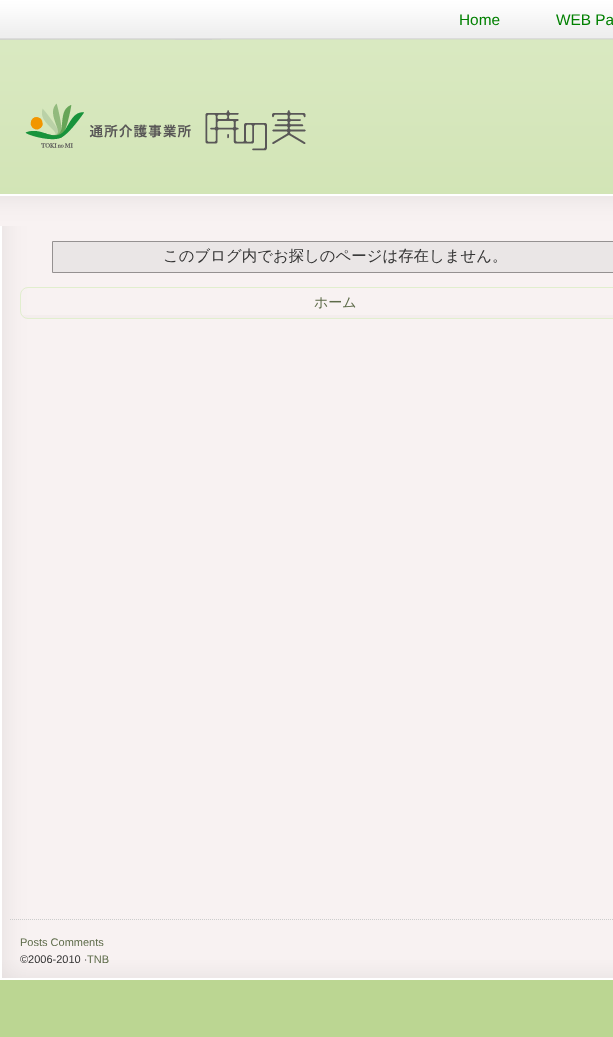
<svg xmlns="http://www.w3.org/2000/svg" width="613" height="1037">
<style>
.a{font:15.4px Liberation Sans;fill:#008000}
.b{font:500 15.4px WenQuanYi Zen Hei;fill:#333}
.c{font:500 14px WenQuanYi Zen Hei;fill:#5d6b49}
.d{font:11px Liberation Sans;fill:#5d6b49}
.e{font:11px Liberation Sans;fill:#333}
</style>
<rect width="100%" height="100%" fill="#bbd692"/>
<image href="1.png" x="0" y="0" width="613" height="194"/>
<image href="2.png" x="221" y="194" width="392" height="27"/>
<image href="5.png" x="0" y="221" width="613" height="739"/>
<image href="3.png" x="0" y="39" width="221" height="187"/>
<image href="4.png" x="25" y="103" width="281" height="48"/>
<path fill="none" stroke="#959191" d="M52.5 241.5h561v31H52.5z"/>
<path fill="#eae6e6" d="M53 242h560v30H53z"/>
<image href="6.png" x="22" y="315" width="591" height="4"/>
<rect fill="none" stroke="#e1eece" x="20.5" y="287.5" width="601" height="31" rx="7.5"/>
<path fill="none" stroke="#ccc" stroke-dasharray="1 1" d="M10 919.5h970"/>
<image href="7.png" x="0" y="960" width="613" height="20"/>
<text class="a" x="459" y="25">Home</text>
<text class="a" x="556" y="25">WEB Pa</text>
<text class="b" x="163" y="261">このブログ内でお探しのページは存在しません。</text>
<text class="c" x="314" y="307">ホーム</text>
<text class="d" x="20" y="946">Posts Comments</text>
<text class="e" x="20" y="963">©2006-2010 ·</text>
<text class="d" x="87" y="963">TNB</text>
</svg>
